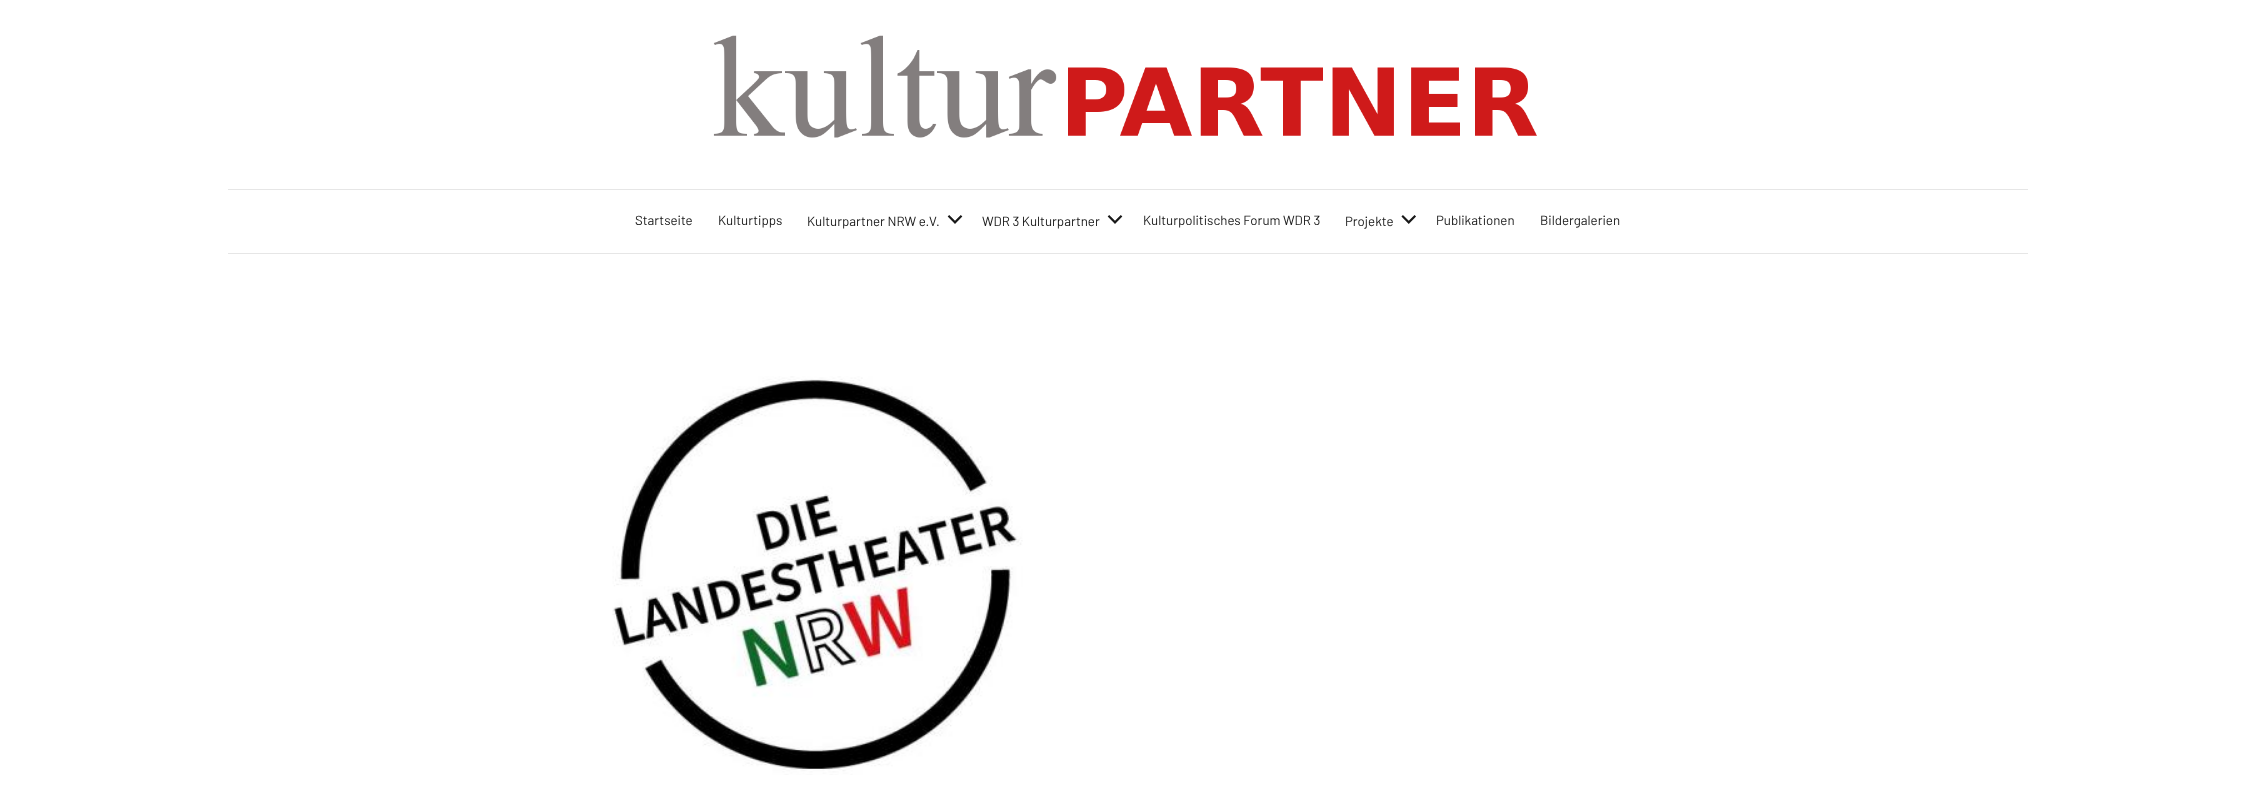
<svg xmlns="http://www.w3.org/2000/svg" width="2254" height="791">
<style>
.a{font:13.25px Barlow;fill:#1a1a1a}
</style>
<rect width="100%" height="100%" fill="#fff"/>
<path fill="#e6e6e6" d="M228 253h1800v1H228z"/>
<image href="1.png" x="713" y="35" width="824" height="103"/>
<path fill="#e6e6e6" d="M228 189h1800v1H228z"/>
<image href="2.png" x="947" y="215" width="16" height="9"/>
<image href="2.png" x="1107" y="215" width="16" height="9"/>
<image href="3.png" x="1401" y="215" width="15" height="9"/>
<image href="4.png" x="612" y="376" width="411" height="399"/>
<text class="a" x="635" y="225">Startseite</text>
<text class="a" x="718" y="225">Kulturtipps</text>
<text class="a" x="807" y="226">Kulturpartner NRW e.V.</text>
<text class="a" x="982" y="226">WDR 3 Kulturpartner</text>
<text class="a" x="1143" y="225">Kulturpolitisches Forum WDR 3</text>
<text class="a" x="1345" y="226">Projekte</text>
<text class="a" x="1436" y="225">Publikationen</text>
<text class="a" x="1540" y="225">Bildergalerien</text>
</svg>
